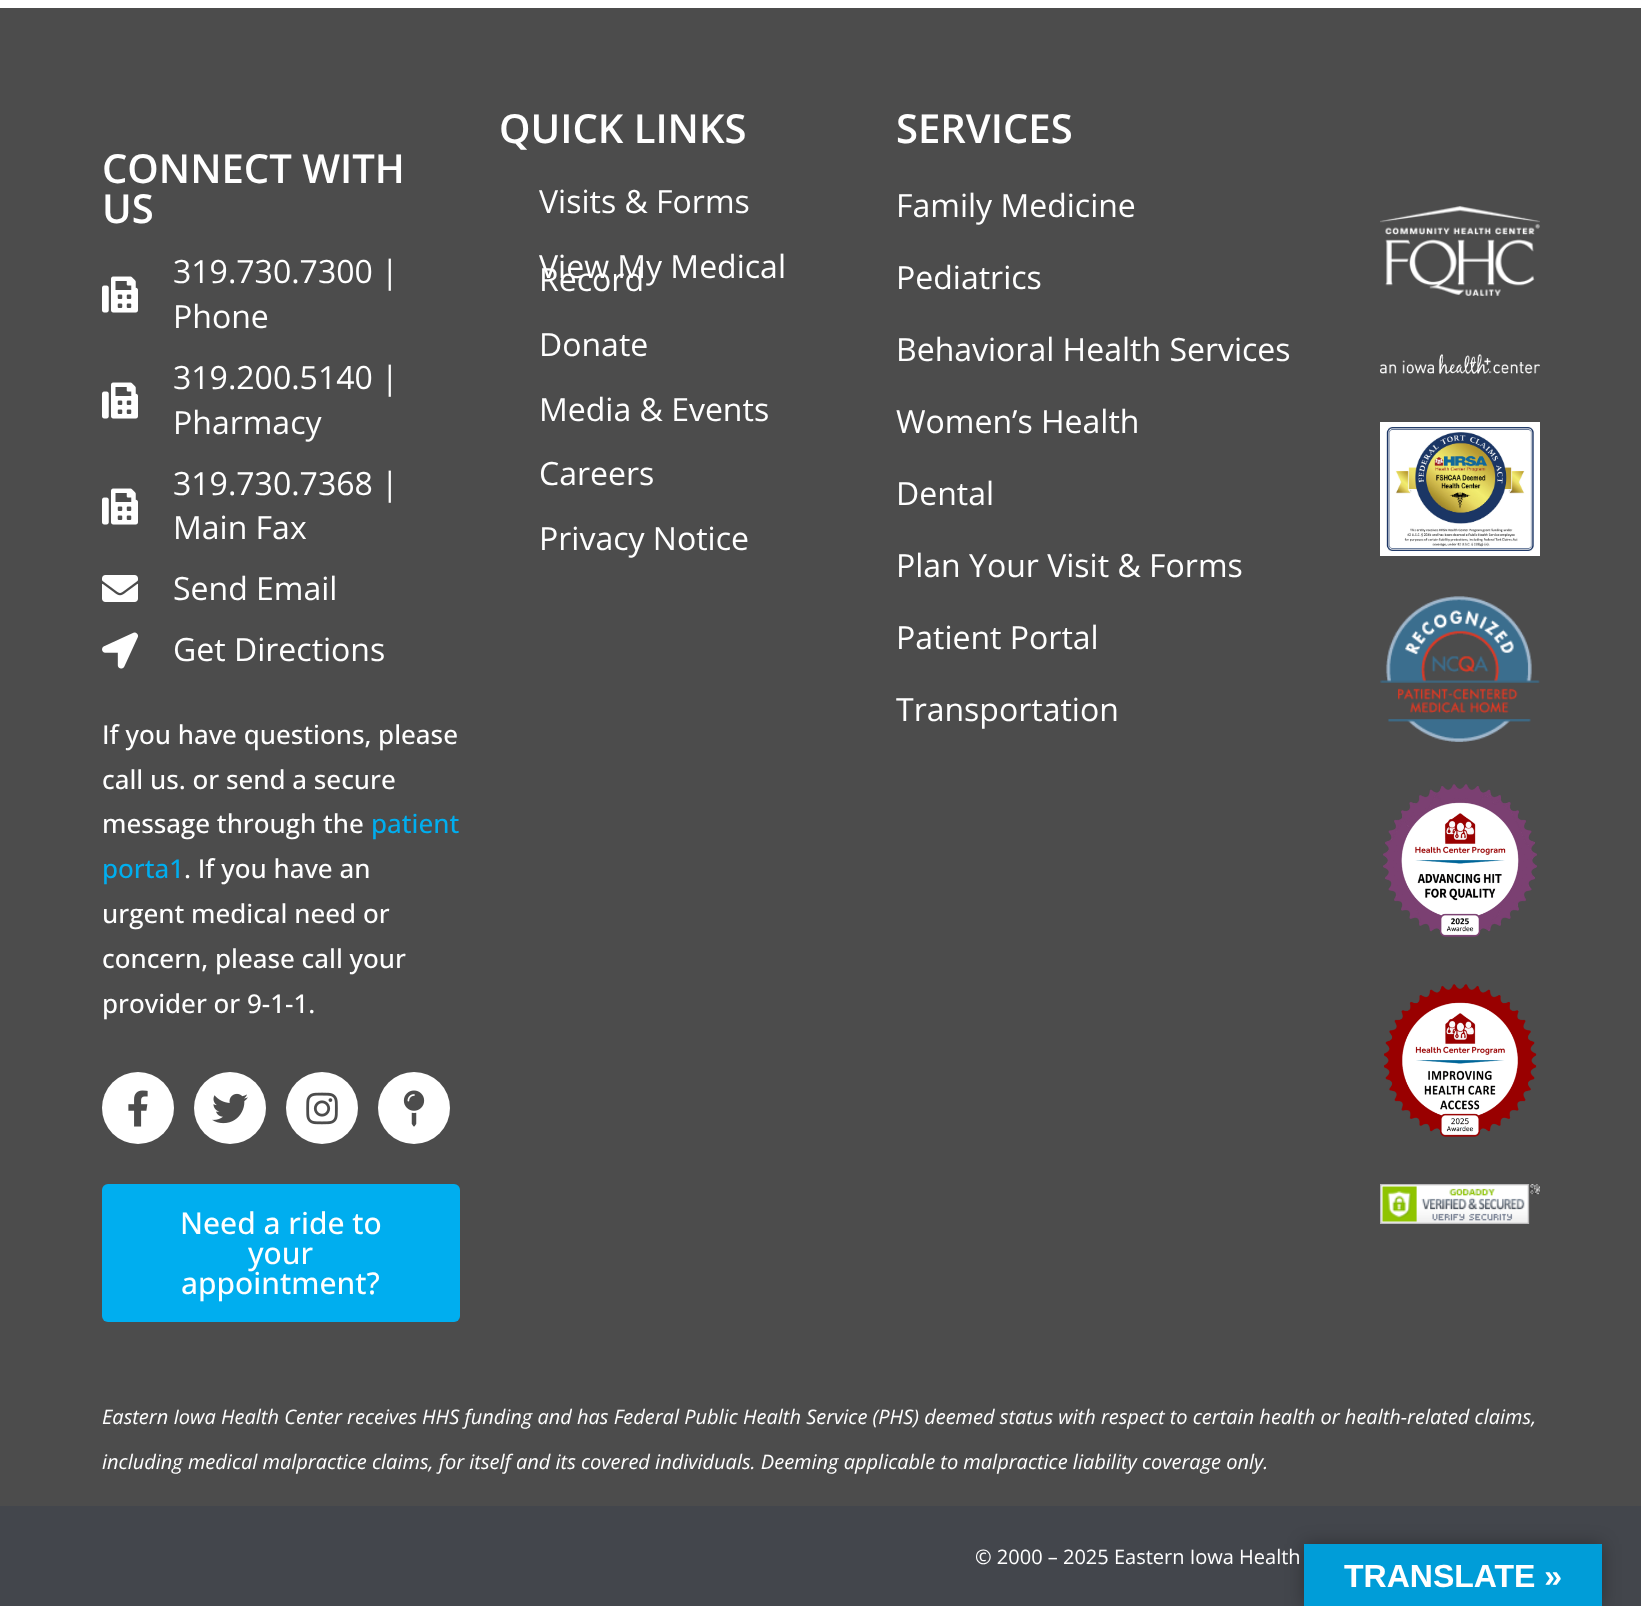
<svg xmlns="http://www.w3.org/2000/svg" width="1641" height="1606">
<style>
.a{font:600 40px Open Sans;fill:#fff}
.b{font:32px Open Sans;fill:#fff}
.c{font:500 26px Open Sans;fill:#fff}
.d{font:500 26px Open Sans;fill:#00aeef}
.e{font:500 30px Open Sans;fill:#fff}
.f{font:italic 20px Open Sans;fill:#fff}
.g{font:20px Open Sans;fill:#fff}
.h{font:bold 32px Liberation Sans;fill:#fff}
</style>
<rect width="100%" height="100%" fill="#fff"/>
<path fill="#4c4c4c" d="M0 8h1641v1498H0z"/>
<image href="1.png" x="102" y="276" width="36" height="37"/>
<image href="1.png" x="102" y="382" width="36" height="37"/>
<image href="1.png" x="102" y="488" width="36" height="37"/>
<image href="2.png" x="102" y="575" width="36" height="27"/>
<image href="3.png" x="102" y="632" width="36" height="37"/>
<circle fill="#fff" cx="138" cy="1108" r="36"/>
<image href="4.png" x="128" y="1090" width="20" height="37"/>
<circle fill="#fff" cx="230" cy="1108" r="36"/>
<image href="5.png" x="212" y="1093" width="36" height="31"/>
<circle fill="#fff" cx="322" cy="1108" r="36"/>
<image href="6.png" x="306" y="1092" width="32" height="33"/>
<circle fill="#fff" cx="414" cy="1108" r="36"/>
<image href="7.png" x="403" y="1090" width="22" height="37"/>
<rect fill="#00aeef" x="102" y="1184" width="358" height="138" rx="6"/>
<image href="8.png" x="1380" y="206" width="160" height="90"/>
<image href="9.png" x="1380" y="354" width="160" height="20"/>
<image href="10.png" x="1380" y="422" width="160" height="134"/>
<image href="11.png" x="1380" y="596" width="160" height="146"/>
<image href="12.png" x="1383" y="784" width="154" height="153"/>
<image href="13.png" x="1384" y="984" width="153" height="153"/>
<image href="14.png" x="1380" y="1184" width="160" height="40"/>
<path fill="#43464c" d="M0 1506h1641v100H0z"/>
<path fill="#0000004d" filter="blur(9px)" d="M1304 1544h298v62H1304z"/>
<path fill="#009dd8" d="M1304 1544h298v62H1304z"/>
<text class="a" x="102" y="183">CONNECT WITH</text>
<text class="a" x="102" y="223">US</text>
<text class="b" x="173" y="283">319.730.7300 |</text>
<text class="b" x="173" y="328">Phone</text>
<text class="b" x="173" y="389">319.200.5140 |</text>
<text class="b" x="173" y="434">Pharmacy</text>
<text class="b" x="173" y="495">319.730.7368 |</text>
<text class="b" x="173" y="539">Main Fax</text>
<text class="b" x="173" y="600">Send Email</text>
<text class="b" x="173" y="661">Get Directions</text>
<text class="c" x="102" y="744">If you have questions, please</text>
<text class="c" x="102" y="789">call us. or send a secure</text>
<text class="c" x="102" y="833">message through the</text>
<text class="d" x="371" y="833">patient</text>
<text class="d" x="102" y="878">porta1</text>
<text class="c" x="184" y="878">. If you have an</text>
<text class="c" x="102" y="923">urgent medical need or</text>
<text class="c" x="102" y="968">concern, please call your</text>
<text class="c" x="102" y="1013">provider or 9-1-1.</text>
<text class="e" x="180" y="1234">Need a ride to</text>
<text class="e" x="248" y="1264">your</text>
<text class="e" x="181" y="1294">appointment?</text>
<text class="a" x="499" y="143">QUICK LINKS</text>
<text class="b" x="539" y="213">Visits &amp; Forms</text>
<text class="b" x="539" y="278">View My Medical</text>
<text class="b" x="539" y="291">Record</text>
<text class="b" x="539" y="356">Donate</text>
<text class="b" x="539" y="421">Media &amp; Events</text>
<text class="b" x="539" y="485">Careers</text>
<text class="b" x="539" y="550">Privacy Notice</text>
<text class="a" x="896" y="143">SERVICES</text>
<text class="b" x="896" y="217">Family Medicine</text>
<text class="b" x="896" y="289">Pediatrics</text>
<text class="b" x="896" y="361">Behavioral Health Services</text>
<text class="b" x="896" y="433">Women’s Health</text>
<text class="b" x="896" y="505">Dental</text>
<text class="b" x="896" y="577">Plan Your Visit &amp; Forms</text>
<text class="b" x="896" y="649">Patient Portal</text>
<text class="b" x="896" y="721">Transportation</text>
<text class="f" x="102" y="1424">Eastern Iowa Health Center receives HHS funding and has Federal Public Health Service (PHS) deemed status with respect to certain health or health-related claims,</text>
<text class="f" x="102" y="1469">including medical malpractice claims, for itself and its covered individuals. Deeming applicable to malpractice liability coverage only.</text>
<text class="g" x="975" y="1564">© 2000 – 2025 Eastern Iowa Health</text>
<text class="h" x="1344" y="1587">TRANSLATE »</text>
</svg>
